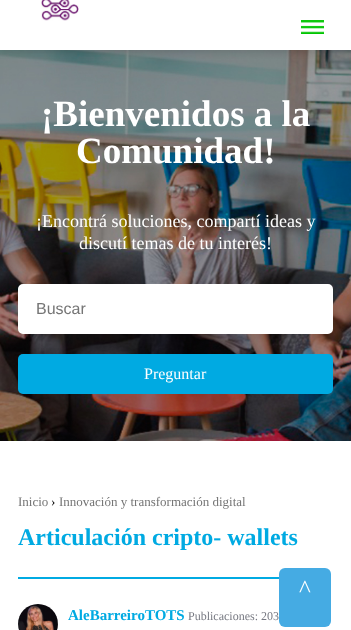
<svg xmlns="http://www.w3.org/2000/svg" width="351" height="630">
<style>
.a{font:bold 37px Liberation Serif;fill:#fff}
.b{font:18px Liberation Serif;fill:#fff}
.c{font:16px Liberation Sans;fill:#757575}
.d{font:16px Liberation Serif;fill:#fff}
.e{font:13px Liberation Serif;fill:#757575}
.f{font:13px Liberation Serif;fill:#000}
.g{font:bold 24px Liberation Serif;fill:#00aae2}
.h{font:bold 15px Liberation Serif;fill:#00aae2}
.i{font:12px Liberation Serif;fill:#777982}
.j{font:25px Liberation Serif;fill:#fff}
</style>
<rect width="100%" height="100%" fill="#fff"/>
<image href="3.png" x="0" y="50" width="351" height="391"/>
<path fill="#0000001a" filter="blur(3px)" d="M0 3h351v50H0z"/>
<path fill="#fff" d="M0 0h351v50H0z"/>
<image href="1.png" x="41" y="0" width="38" height="21"/>
<image href="2.png" x="301" y="20" width="23" height="14"/>
<rect fill="#fff" stroke="#fff" stroke-width="3" x="19.5" y="285.5" width="312" height="47" rx="3.5"/>
<rect fill="#00aae2" x="18" y="354" width="315" height="40" rx="5"/>
<path fill="#00aae2" d="M18 577h261v2H18z"/>
<image href="4.png" x="18" y="604" width="40" height="26"/>
<rect fill="#45abe3" x="279" y="568" width="52" height="59" rx="6"/>
<text class="a" x="41" y="126">¡Bienvenidos a la</text>
<text class="a" x="76" y="163">Comunidad!</text>
<text class="b" x="36" y="227">¡Encontrá soluciones, compartí ideas y</text>
<text class="b" x="79" y="249">discutí temas de tu interés!</text>
<text class="c" x="36" y="314">Buscar</text>
<text class="d" x="144" y="379">Preguntar</text>
<text class="e" x="18" y="506">Inicio</text>
<text class="f" x="51" y="506">›</text>
<text class="e" x="59" y="506">Innovación y transformación digital</text>
<text class="g" x="18" y="545">Articulación cripto- wallets</text>
<text class="h" x="68" y="620">AleBarreiroTOTS</text>
<text class="i" x="188" y="620">Publicaciones: 203</text>
<text class="j" x="299" y="597">^</text>
</svg>
